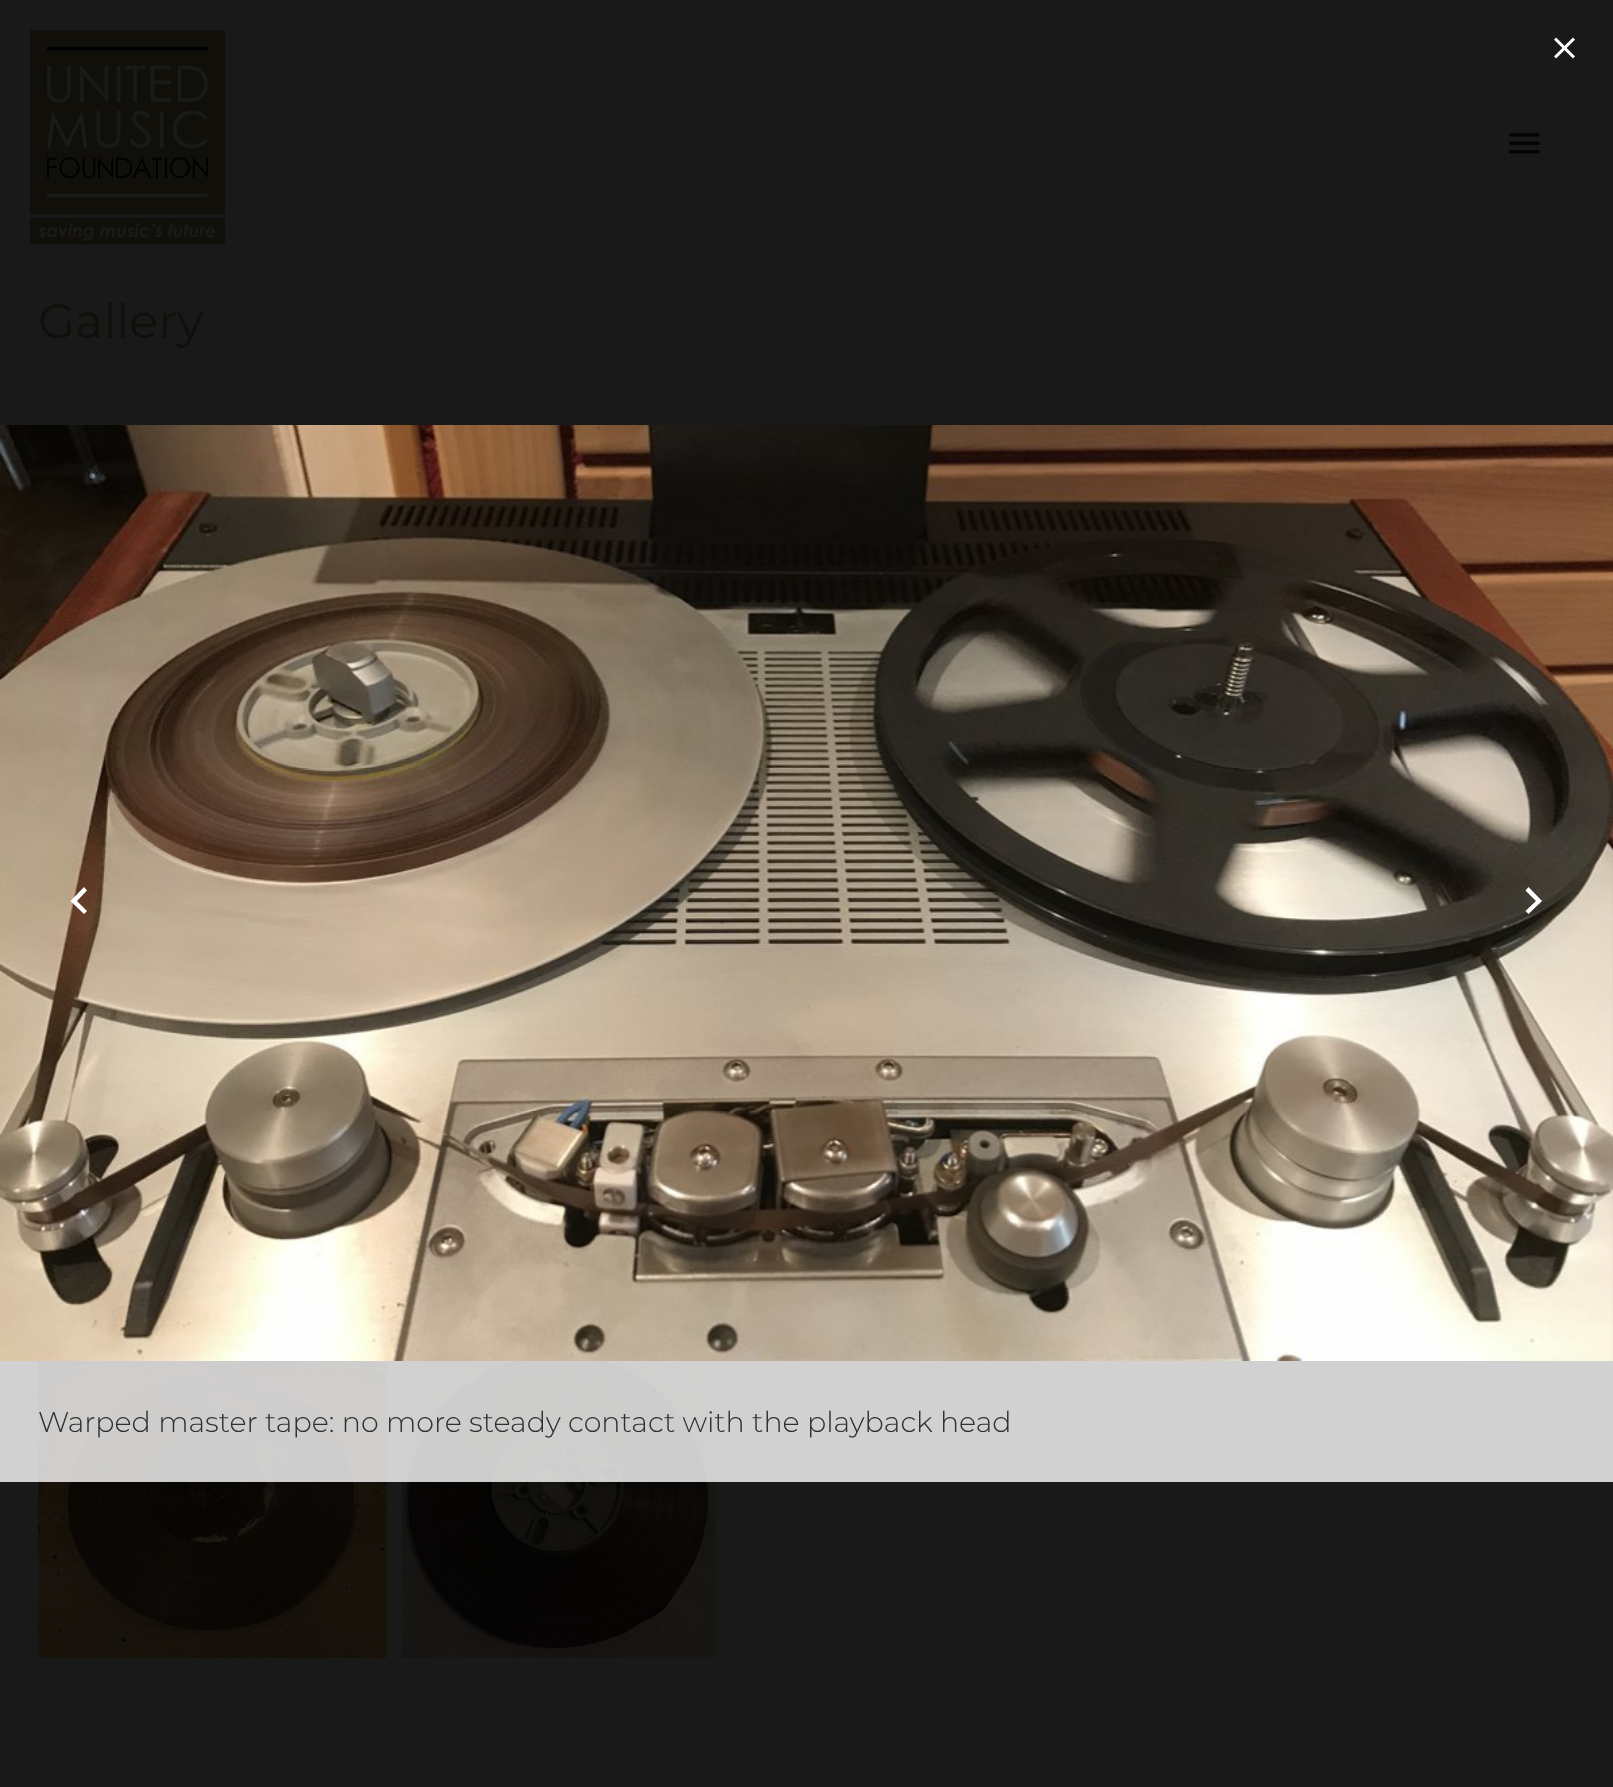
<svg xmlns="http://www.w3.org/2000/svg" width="1613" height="1787">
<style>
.a{font:48px Montserrat;fill:#110f09}
.b{font:300 28.5px Montserrat;fill:#303030}
</style>
<rect width="100%" height="100%" fill="#191919"/>
<image href="1.png" x="30" y="30" width="195" height="215"/>
<image href="2.png" x="1509" y="133" width="31" height="21"/>
<image href="3.png" x="38" y="1361" width="349" height="297"/>
<image href="4.png" x="402" y="1361" width="314" height="297"/>
<image href="6.png" x="0" y="425" width="1613" height="936"/>
<path fill="#fff" d="M87 890.5l-10 10.5l10 10l-3 3l-13.5-13l13.5-14z"/>
<path fill="#fff" d="M1528.5 887l13.5 14l-13.5 13l-3-3l10.5-10l-10.5-10.5z"/>
<image href="5.png" x="1554" y="37" width="21" height="22"/>
<path fill="#ffffffcc" d="M0 1361h1613v121H0z"/>
<text class="a" x="38" y="338">Gallery</text>
<text class="b" x="38" y="1432">Warped master tape: no more steady contact with the playback head</text>
</svg>
